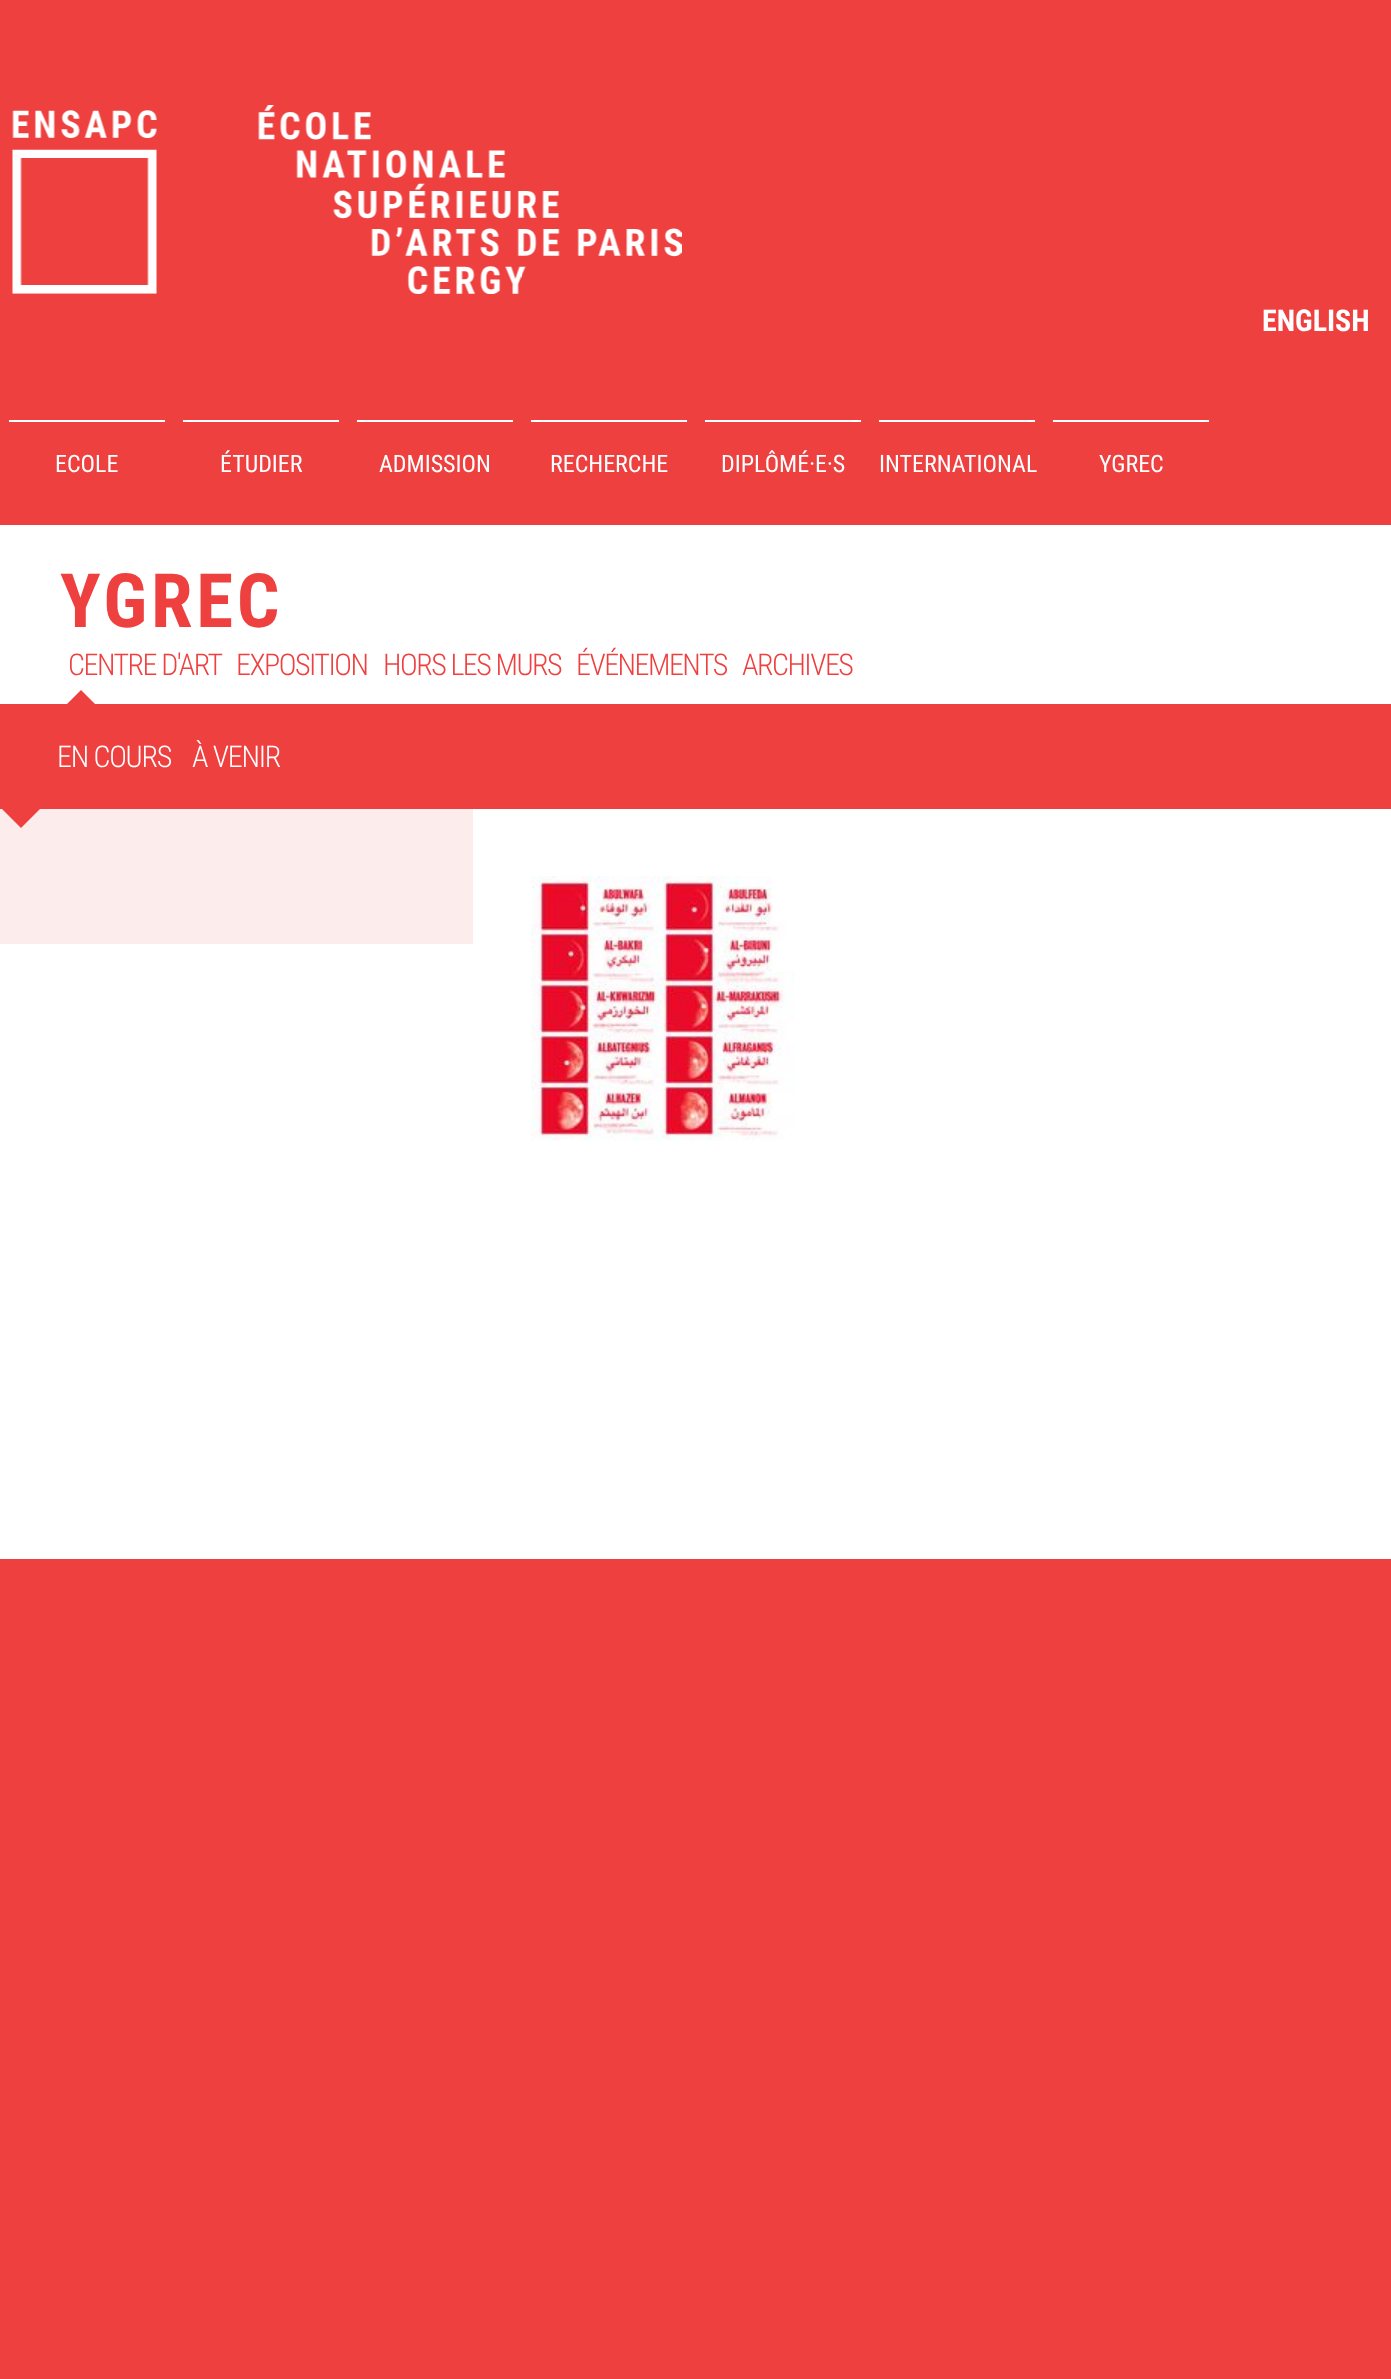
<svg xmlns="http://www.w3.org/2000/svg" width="1391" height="2379">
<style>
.a{font:bold 30px Roboto Condensed;fill:#fff}
.b{font:24px Roboto Condensed;fill:#fff}
.c{font:bold 75px Roboto Condensed;letter-spacing:3.75px;fill:#ef4040}
.d{font:300 30px Roboto Condensed;letter-spacing:-1.5px;fill:#ef4040}
.e{font:300 30px Roboto Condensed;letter-spacing:-1.25px;fill:#fff}
</style>
<defs>
<clipPath id="clip1"><path d="M60 641h1272v63H60z"/></clipPath>
</defs>
<rect width="100%" height="100%" fill="#ef4040"/>
<image href="1.png" x="12" y="105" width="670" height="189"/>
<path fill="#fff" d="M9 420h156v2H9z"/>
<path fill="#fff" d="M183 420h156v2H183z"/>
<path fill="#fff" d="M357 420h156v2H357z"/>
<path fill="#fff" d="M531 420h156v2H531z"/>
<path fill="#fff" d="M705 420h156v2H705z"/>
<path fill="#fff" d="M879 420h156v2H879z"/>
<path fill="#fff" d="M1053 420h156v2H1053z"/>
<path fill="#fff" d="M0 525h1391v179H0z"/>
<g clip-path="url(#clip1)">
<path fill="#ef4040" d="M102 711h-42l21-21z"/>
</g>
<path fill="#fff" d="M0 809h1391v750H0z"/>
<path fill="#fdecec" d="M0 809h473v135H0z"/>
<path fill="#ef4040" d="M0 807h42l-21 21z"/>
<image href="2.png" x="531" y="876" width="264" height="265"/>
<text class="a" x="1262" y="331">ENGLISH</text>
<text class="b" x="55" y="472">ECOLE</text>
<text class="b" x="220" y="472">ÉTUDIER</text>
<text class="b" x="379" y="472">ADMISSION</text>
<text class="b" x="550" y="472">RECHERCHE</text>
<text class="b" x="721" y="472">DIPLÔMÉ·E·S</text>
<text class="b" x="879" y="472">INTERNATIONAL</text>
<text class="b" x="1099" y="472">YGREC</text>
<text class="c" x="60" y="627">YGREC</text>
<text class="d" x="68" y="675">CENTRE D'ART</text>
<text class="d" x="236" y="675">EXPOSITION</text>
<text class="d" x="383" y="675">HORS LES MURS</text>
<text class="d" x="576" y="675">ÉVÉNEMENTS</text>
<text class="d" x="742" y="675">ARCHIVES</text>
<text class="e" x="57" y="767">EN COURS</text>
<text class="e" x="192" y="767">À VENIR</text>
</svg>
